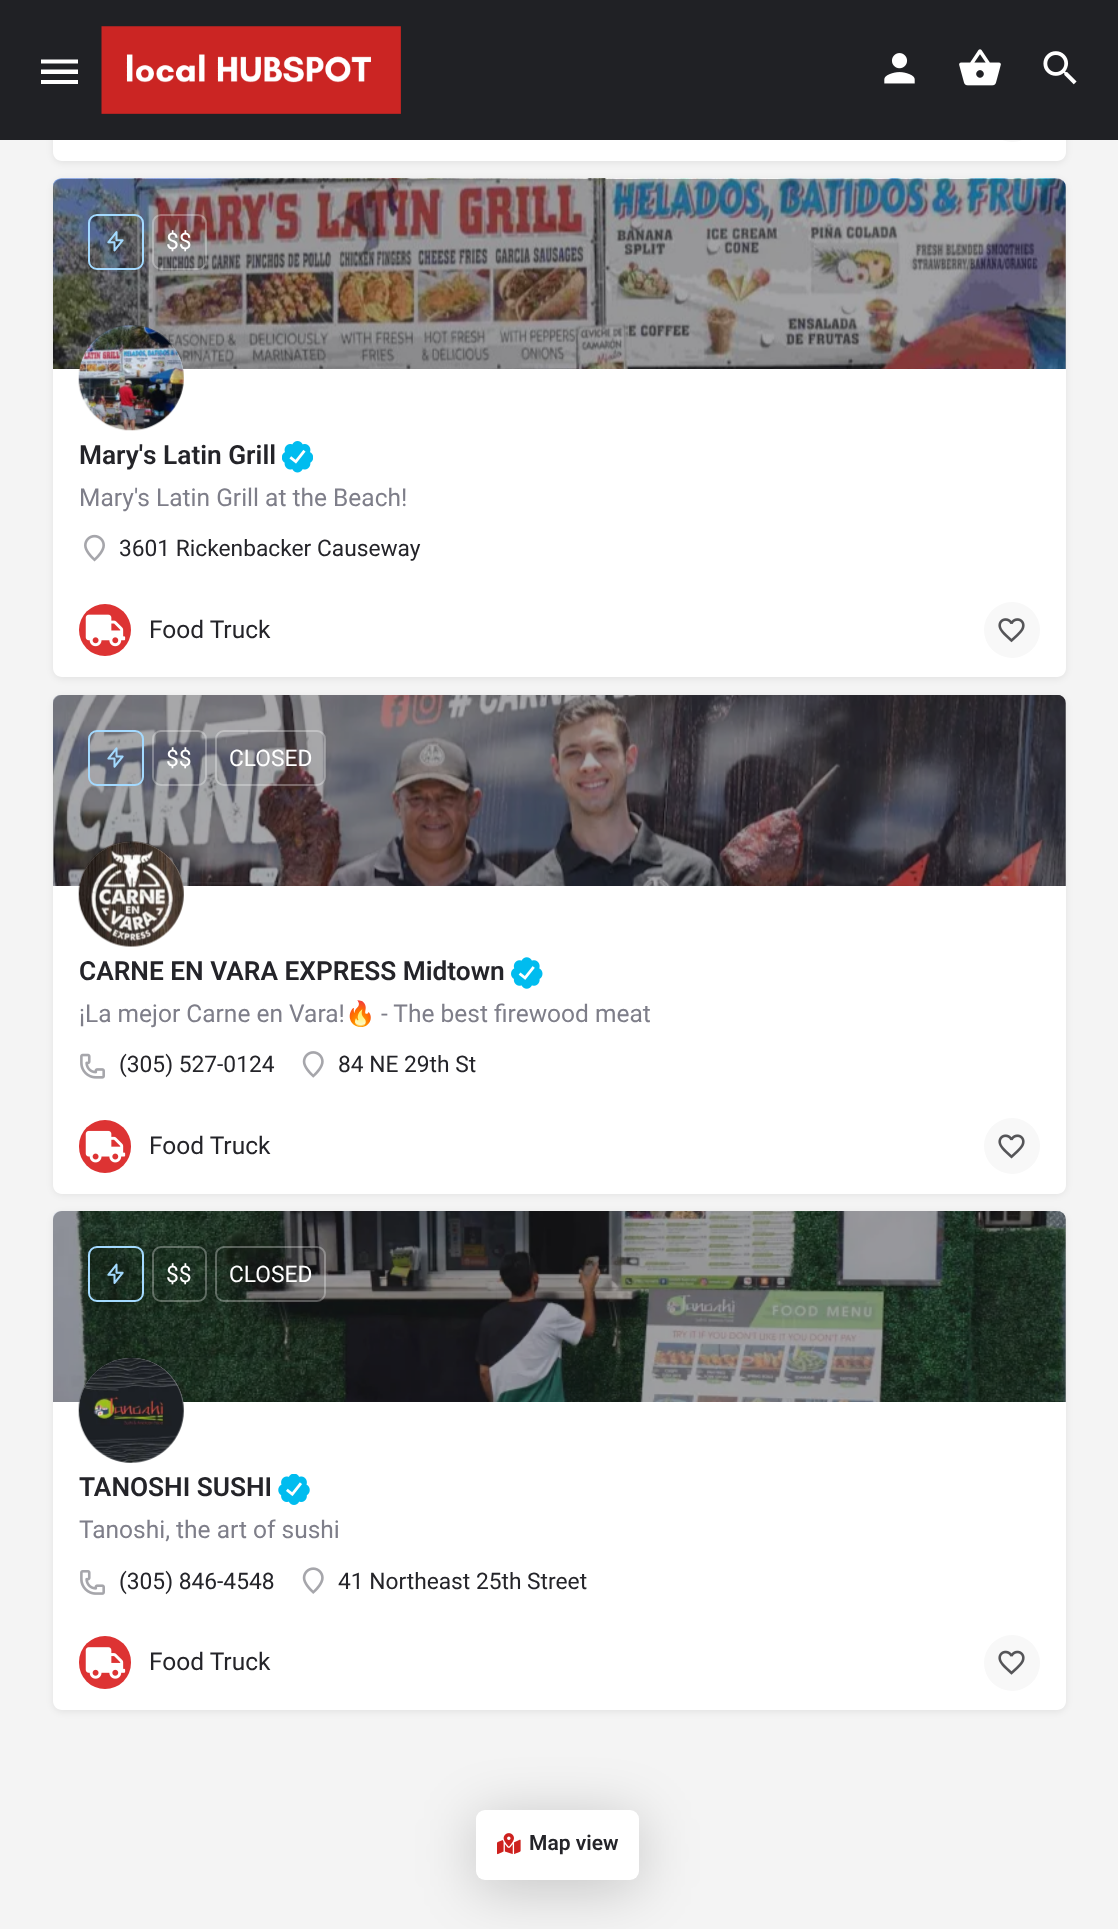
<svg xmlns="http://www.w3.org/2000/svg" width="1118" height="1929">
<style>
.a{font:22.75px Roboto;fill:#fff}
.b{font:600 26.25px Roboto;fill:#242429}
.c{font:24.5px Roboto;fill:#7e7e89}
.d{font:22.75px Roboto;fill:#242429}
.e{font:24.5px Roboto;fill:#242429}
.f{font:24.5px Noto Color Emoji;fill:#7e7e89}
.g{font:600 21px Roboto;fill:#242429}
</style>
<rect width="100%" height="100%" fill="#f4f4f4"/>
<rect fill="#00000012" filter="blur(3.5px)" x="53" y="-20" width="1013" height="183" rx="9"/>
<path fill="#fff" d="M53 65h1013v87c0 5-4 9-9 9h-995c-5 0-9-4-9-9z"/>
<circle fill="#f8f8f8" cx="1012" cy="114" r="28"/>
<path fill="#202125" d="M0 0h1118v140H0z"/>
<path fill="#fff" d="M41 59.5h37v4h-37zm0 14.5v-4.5h37v4.5zm0 10v-4h37v4z"/>
<image href="1.png" x="101" y="26" width="300" height="88"/>
<image href="2.png" x="884" y="53" width="31" height="31"/>
<image href="3.png" x="959" y="49" width="42" height="37"/>
<image href="4.png" x="1043" y="51" width="34" height="34"/>
<rect fill="#00000012" filter="blur(3.5px)" x="53" y="180" width="1013" height="499" rx="9"/>
<image href="5.png" x="53" y="178" width="1013" height="191"/>
<path fill="#24242966" d="M62 179h995c5 0 9 4 9 9v393h-1013v-393c0-5 4-9 9-9z"/>
<rect fill="none" stroke="#a4daff" stroke-width="2" x="89" y="215" width="54" height="54" rx="8"/>
<image href="6.png" x="107" y="231" width="17" height="21"/>
<rect fill="none" stroke="#ffffff4d" stroke-width="2" x="153" y="215" width="53" height="54" rx="8"/>
<path fill="#fff" d="M53 369h1013v212H53z"/>
<circle fill="#fff" cx="131.5" cy="378.5" r="52.5"/>
<image href="7.png" x="78" y="325" width="106" height="106"/>
<image href="8.png" x="282" y="441" width="31" height="32"/>
<image href="9.png" x="84" y="534" width="21" height="28"/>
<path fill="#fff" d="M53 581h1013v87c0 5-4 9-9 9h-995c-5 0-9-4-9-9z"/>
<circle fill="#d33" cx="105" cy="630" r="26"/>
<image href="10.png" x="85" y="614" width="41" height="33"/>
<circle fill="#f8f8f8" cx="1012" cy="630" r="28"/>
<image href="11.png" x="998" y="618" width="27" height="25"/>
<rect fill="#00000012" filter="blur(3.5px)" x="53" y="697" width="1013" height="498" rx="9"/>
<image href="12.png" x="53" y="695" width="1013" height="191"/>
<path fill="#24242966" d="M62 695h995c5 0 9 4 9 9v393h-1013v-393c0-5 4-9 9-9z"/>
<rect fill="none" stroke="#a4daff" stroke-width="2" x="89" y="731" width="54" height="54" rx="8"/>
<image href="13.png" x="107" y="747" width="17" height="21"/>
<rect fill="none" stroke="#ffffff4d" stroke-width="2" x="153" y="731" width="53" height="54" rx="8"/>
<rect fill="none" stroke="#ffffff4d" stroke-width="2" x="216" y="731" width="109" height="54" rx="8"/>
<path fill="#fff" d="M53 886h1013v211H53z"/>
<circle fill="#fff" cx="131.5" cy="894.5" r="52.5"/>
<image href="14.png" x="78" y="841" width="106" height="106"/>
<image href="15.png" x="511" y="957" width="32" height="32"/>
<image href="16.png" x="80" y="1053" width="25" height="26"/>
<image href="17.png" x="302" y="1051" width="22" height="27"/>
<path fill="#fff" d="M53 1097h1013v88c0 5-4 9-9 9h-995c-5 0-9-4-9-9z"/>
<rect fill="#d33" x="79" y="1120" width="52" height="53" rx="26"/>
<image href="18.png" x="85" y="1130" width="41" height="33"/>
<circle fill="#f8f8f8" cx="1012" cy="1146" r="28"/>
<image href="19.png" x="998" y="1134" width="27" height="25"/>
<rect fill="#00000012" filter="blur(3.5px)" x="53" y="1213" width="1013" height="499" rx="9"/>
<image href="20.png" x="53" y="1211" width="1013" height="191"/>
<path fill="#24242966" d="M62 1211h995c5 0 9 4 9 9v394h-1013v-394c0-5 4-9 9-9z"/>
<rect fill="none" stroke="#a4daff" stroke-width="2" x="89" y="1247" width="54" height="54" rx="8"/>
<image href="21.png" x="107" y="1263" width="17" height="21"/>
<rect fill="none" stroke="#ffffff4d" stroke-width="2" x="153" y="1247" width="53" height="54" rx="8"/>
<rect fill="none" stroke="#ffffff4d" stroke-width="2" x="216" y="1247" width="109" height="54" rx="8"/>
<path fill="#fff" d="M53 1402h1013v212H53z"/>
<circle fill="#fff" cx="131.5" cy="1410.5" r="52.5"/>
<image href="22.png" x="78" y="1357" width="106" height="106"/>
<image href="23.png" x="278" y="1474" width="32" height="31"/>
<image href="24.png" x="80" y="1570" width="25" height="25"/>
<image href="25.png" x="302" y="1567" width="22" height="27"/>
<path fill="#fff" d="M53 1614h1013v87c0 5-4 9-9 9h-995c-5 0-9-4-9-9z"/>
<rect fill="#d33" x="79" y="1636" width="52" height="53" rx="26"/>
<image href="26.png" x="85" y="1647" width="41" height="32"/>
<circle fill="#f8f8f8" cx="1012" cy="1663" r="28"/>
<image href="27.png" x="998" y="1650" width="27" height="25"/>
<rect fill="#00000033" filter="blur(29px)" x="476" y="1818" width="163" height="70" rx="9"/>
<rect fill="#fff" x="476" y="1810" width="163" height="70" rx="9"/>
<image href="28.png" x="497" y="1833" width="24" height="22"/>
<text class="a" x="166" y="249">$$</text>
<text class="b" x="79" y="464">Mary's Latin Grill</text>
<text class="c" x="79" y="506">Mary's Latin Grill at the Beach!</text>
<text class="d" x="119" y="556">3601 Rickenbacker Causeway</text>
<text class="e" x="149" y="638">Food Truck</text>
<text class="a" x="166" y="766">$$</text>
<text class="a" x="229" y="766">CLOSED</text>
<text class="b" x="79" y="980">CARNE EN VARA EXPRESS Midtown</text>
<text class="c" x="79" y="1022">¡La mejor Carne en Vara!</text>
<text class="f" x="345" y="1022">🔥</text>
<text class="c" x="381" y="1022">- The best firewood meat</text>
<text class="d" x="119" y="1072">(305) 527-0124</text>
<text class="d" x="338" y="1072">84 NE 29th St</text>
<text class="e" x="149" y="1154">Food Truck</text>
<text class="a" x="166" y="1282">$$</text>
<text class="a" x="229" y="1282">CLOSED</text>
<text class="b" x="79" y="1496">TANOSHI SUSHI</text>
<text class="c" x="79" y="1538">Tanoshi, the art of sushi</text>
<text class="d" x="119" y="1589">(305) 846-4548</text>
<text class="d" x="338" y="1589">41 Northeast 25th Street</text>
<text class="e" x="149" y="1670">Food Truck</text>
<text class="g" x="529" y="1850">Map view</text>
</svg>
